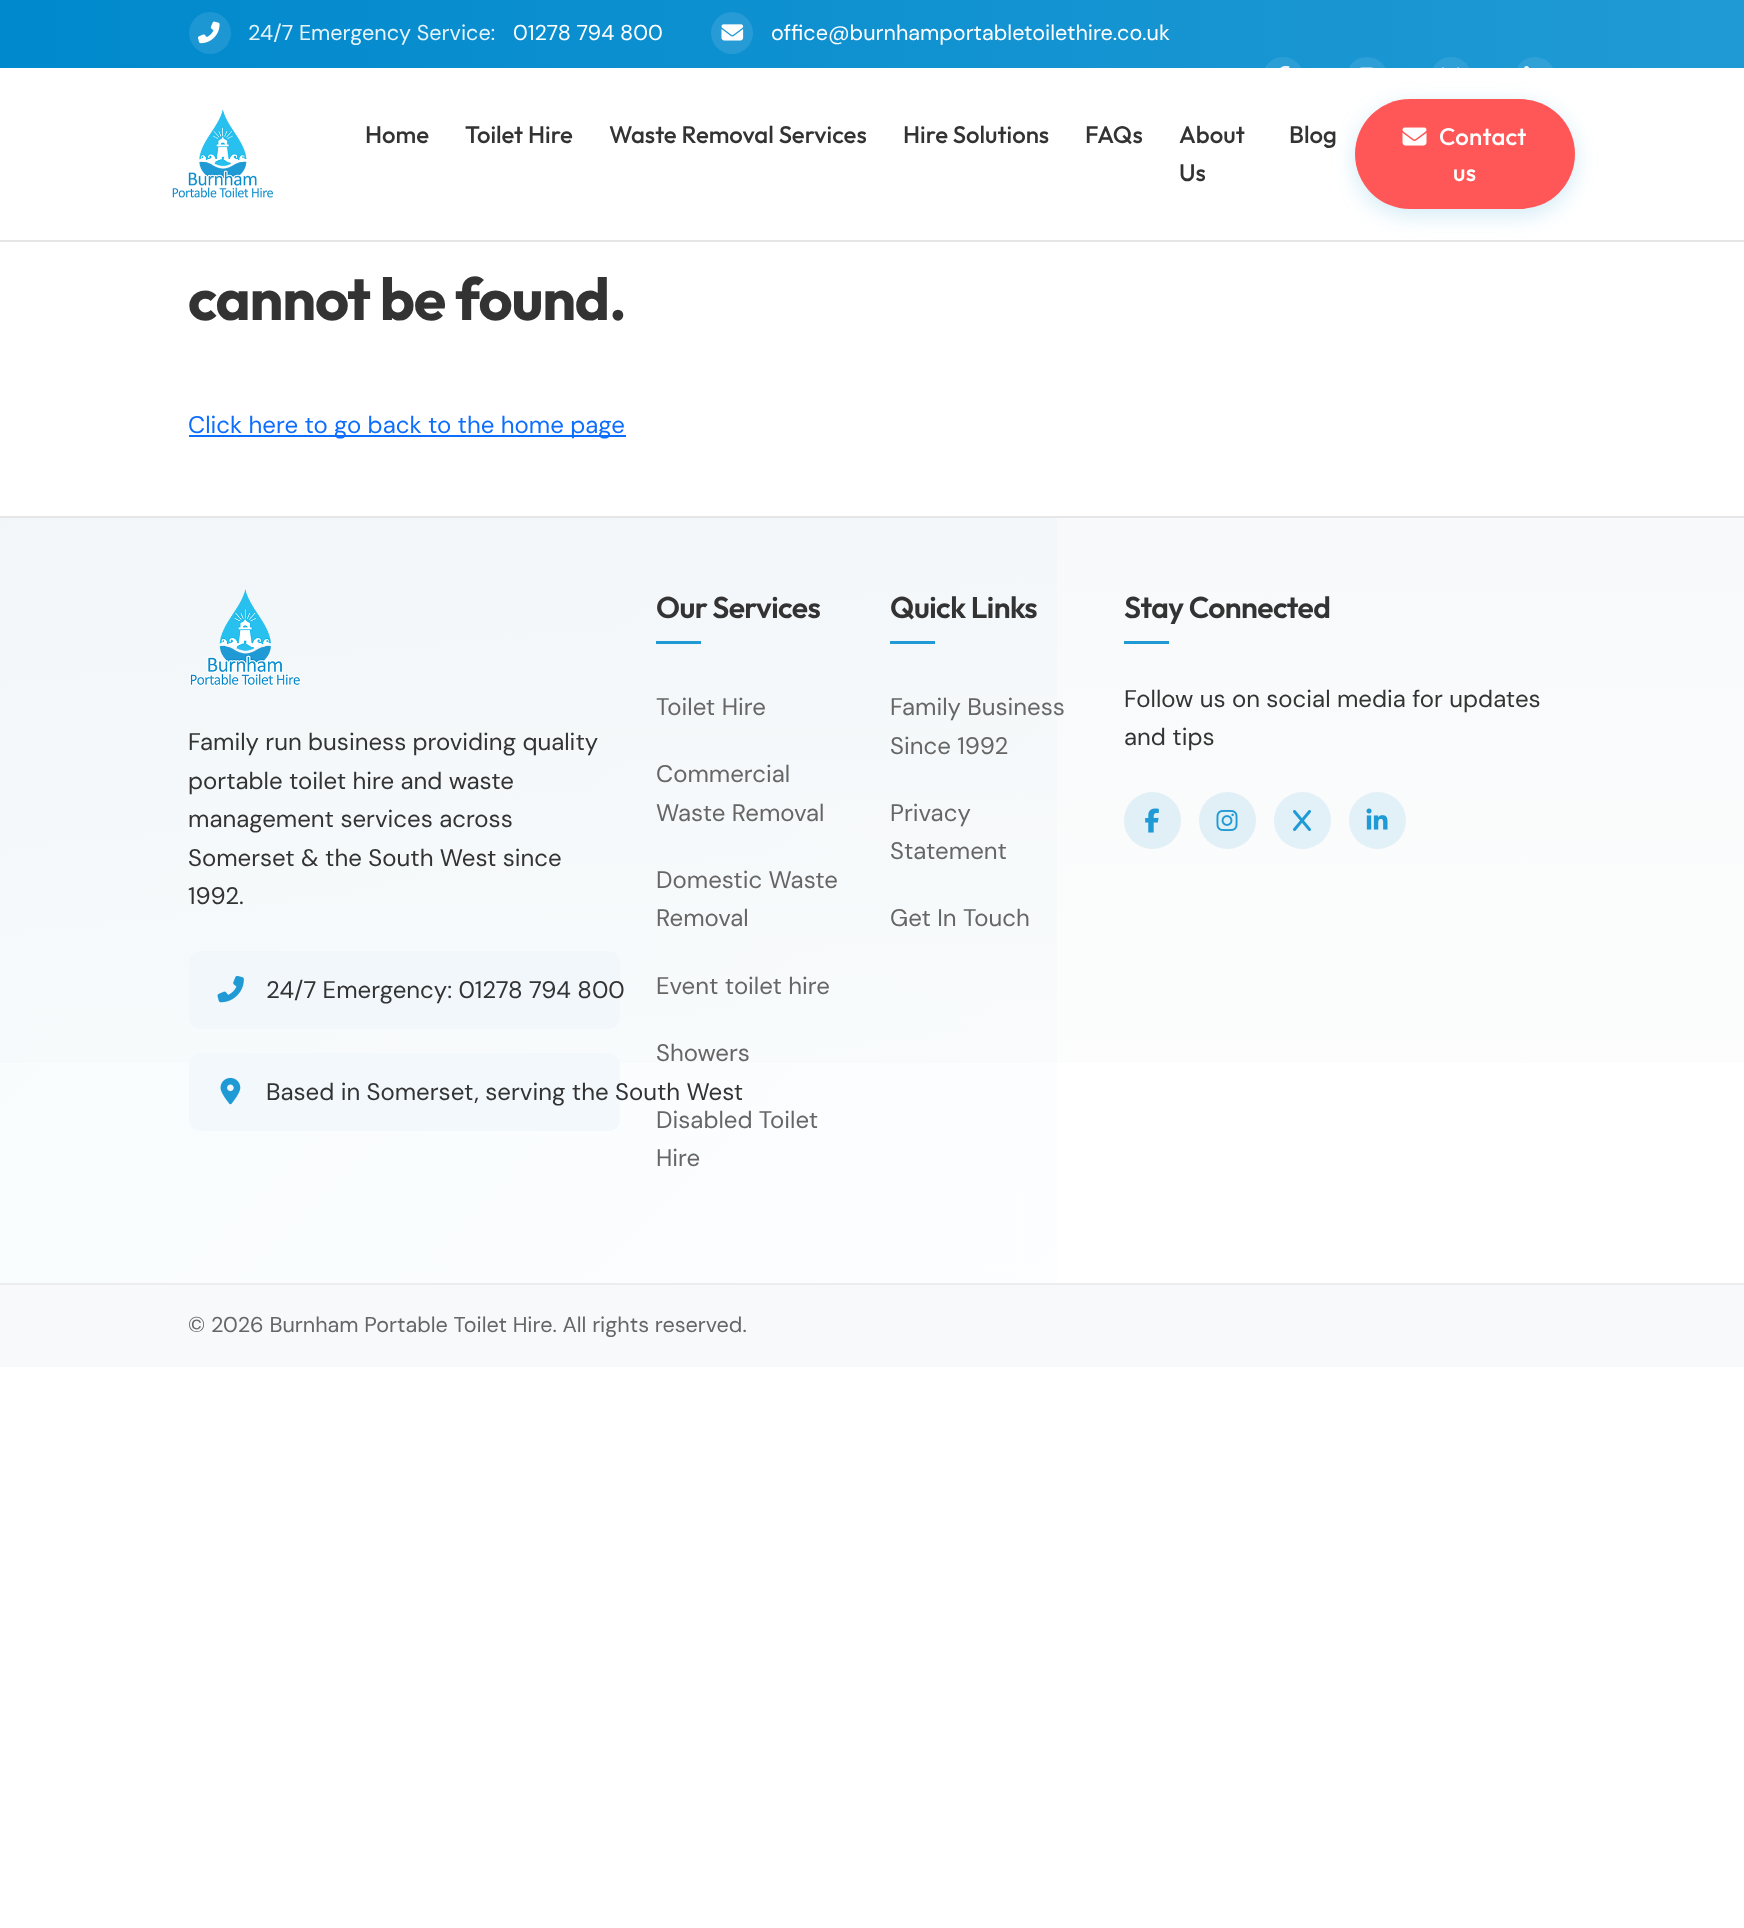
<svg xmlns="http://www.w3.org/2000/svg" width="1744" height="1928">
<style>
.a{font:21.6px DM Sans;fill:#e6f4fa}
.b{font:21.6px DM Sans;fill:#fff}
.c{font:500 24px Outfit;fill:#333}
.d{font:500 24px Outfit;letter-spacing:0.25px;fill:#fff}
.e{font:bold 59.25px Outfit;letter-spacing:-1.2px;fill:#333}
.f{font:24px DM Sans;fill:#0d6efd}
.g{font:600 30px Outfit;letter-spacing:-0.6px;fill:#333}
.h{font:24px DM Sans;fill:#666}
.i{font:24px DM Sans;fill:#333}
.j{font:21.6px DM Sans;fill:#666}
</style>
<defs>
<linearGradient id="g1" gradientUnits="userSpaceOnUse" x1="0" y1="34" x2="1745" y2="34"><stop offset="0" stop-color="#0089cd"/><stop offset="1" stop-color="#209ad4"/></linearGradient>
<linearGradient id="g2" gradientUnits="userSpaceOnUse" x1="872" y1="517" x2="872" y2="1367"><stop offset="0" stop-color="#f8f9fa"/><stop offset="1" stop-color="#fff"/></linearGradient>
<linearGradient id="g3" gradientUnits="userSpaceOnUse" x1="245" y1="273" x2="1500" y2="1527"><stop offset="0" stop-color="#209ad4" stop-opacity="0.03"/><stop offset="1" stop-color="#209ad4" stop-opacity="0.01"/></linearGradient>
</defs>
<rect width="100%" height="100%" fill="#fff"/>
<path fill="url(#g1)" d="M0 0h1744v68H0z"/>
<circle fill="#1d97d3" cx="210" cy="33" r="21"/>
<image href="1.png" x="198" y="21" width="22" height="23"/>
<circle fill="#269bd5" cx="732" cy="33" r="21"/>
<image href="2.png" x="721" y="24" width="23" height="17"/>
<circle fill="#ffffff17" cx="1283" cy="78" r="21"/>
<image href="3.png" x="1280" y="66" width="10" height="2"/>
<circle fill="#ffffff17" cx="1367" cy="78" r="21"/>
<image href="4.png" x="1360" y="67" width="13" height="1"/>
<circle fill="#ffffff17" cx="1451" cy="78" r="21"/>
<image href="5.png" x="1442" y="67" width="17" height="1"/>
<circle fill="#ffffff17" cx="1535" cy="78" r="21"/>
<image href="6.png" x="1524" y="66" width="5" height="2"/>
<path fill="#e6e6e6" d="M0 240h1744v2H0z"/>
<image href="7.png" x="172" y="109" width="101" height="89"/>
<rect fill="#209ad433" filter="blur(11px)" x="1355" y="105" width="220" height="110" rx="55"/>
<rect fill="#ff5757" x="1355" y="99" width="220" height="110" rx="55"/>
<image href="8.png" x="1402" y="127" width="25" height="19"/>
<path fill="#0d6efd" d="M189 435h437v2H189z"/>
<path fill="url(#g2)" d="M0 518h1744v545H0z"/>
<path fill="#e6e6e6" d="M0 516h1744v2H0z"/>
<path fill="url(#g3)" d="M0 518h1057v765H0z"/>
<path fill="#209ad4" d="M656 641h45v3H656z"/>
<path fill="#209ad4" d="M890 641h45v3H890z"/>
<path fill="#209ad4" d="M1124 641h45v3H1124z"/>
<circle fill="#e1f0f7" cx="1152.5" cy="820.5" r="28.5"/>
<image href="9.png" x="1145" y="808" width="14" height="25"/>
<circle fill="#e1f0f7" cx="1227.5" cy="820.5" r="28.5"/>
<image href="10.png" x="1216" y="810" width="22" height="21"/>
<circle fill="#e2f0f8" cx="1302.5" cy="820.5" r="28.5"/>
<image href="11.png" x="1293" y="810" width="18" height="21"/>
<circle fill="#e2f0f8" cx="1377.5" cy="820.5" r="28.5"/>
<image href="12.png" x="1366" y="808" width="22" height="22"/>
<image href="13.png" x="189" y="589" width="112" height="97"/>
<rect fill="#f1f7fb" x="189" y="951" width="431" height="78" rx="12"/>
<image href="14.png" x="217" y="975" width="27" height="28"/>
<rect fill="#f2f8fb" x="189" y="1053" width="431" height="78" rx="12"/>
<image href="15.png" x="220" y="1077" width="21" height="28"/>
<path fill="#f8f9fa" d="M0 1285h1744v82H0z"/>
<path fill="#ecedee" d="M0 1283h1744v2H0z"/>
<text class="a" x="248" y="40">24/7 Emergency Service:</text>
<text class="b" x="513" y="40">01278 794 800</text>
<text class="b" x="771" y="40">office@burnhamportabletoilethire.co.uk</text>
<text class="c" x="365" y="143">Home</text>
<text class="c" x="465" y="143">Toilet Hire</text>
<text class="c" x="609" y="143">Waste Removal Services</text>
<text class="c" x="903" y="143">Hire Solutions</text>
<text class="c" x="1085" y="143">FAQs</text>
<text class="c" x="1179" y="143">About</text>
<text class="c" x="1179" y="181">Us</text>
<text class="c" x="1289" y="143">Blog</text>
<text class="d" x="1439" y="145">Contact</text>
<text class="d" x="1453" y="181">us</text>
<text class="e" x="188" y="320">cannot be found.</text>
<text class="f" x="188" y="433">Click here to go back to the home page</text>
<text class="g" x="656" y="618">Our Services</text>
<text class="h" x="656" y="715">Toilet Hire</text>
<text class="h" x="656" y="782">Commercial</text>
<text class="h" x="656" y="821">Waste Removal</text>
<text class="h" x="656" y="888">Domestic Waste</text>
<text class="h" x="656" y="926">Removal</text>
<text class="h" x="656" y="994">Event toilet hire</text>
<text class="h" x="656" y="1061">Showers</text>
<text class="h" x="656" y="1128">Disabled Toilet</text>
<text class="h" x="656" y="1166">Hire</text>
<text class="g" x="890" y="618">Quick Links</text>
<text class="h" x="890" y="715">Family Business</text>
<text class="h" x="890" y="754">Since 1992</text>
<text class="h" x="890" y="821">Privacy</text>
<text class="h" x="890" y="859">Statement</text>
<text class="h" x="890" y="926">Get In Touch</text>
<text class="g" x="1124" y="618">Stay Connected</text>
<text class="i" x="1124" y="707">Follow us on social media for updates</text>
<text class="i" x="1124" y="745">and tips</text>
<text class="i" x="188" y="750">Family run business providing quality</text>
<text class="i" x="188" y="789">portable toilet hire and waste</text>
<text class="i" x="188" y="827">management services across</text>
<text class="i" x="188" y="866">Somerset &amp; the South West since</text>
<text class="i" x="188" y="904">1992.</text>
<text class="i" x="266" y="998">24/7 Emergency: 01278 794 800</text>
<text class="i" x="266" y="1100">Based in Somerset, serving the South West</text>
<text class="j" x="188" y="1332">© 2026 Burnham Portable Toilet Hire. All rights reserved.</text>
</svg>
